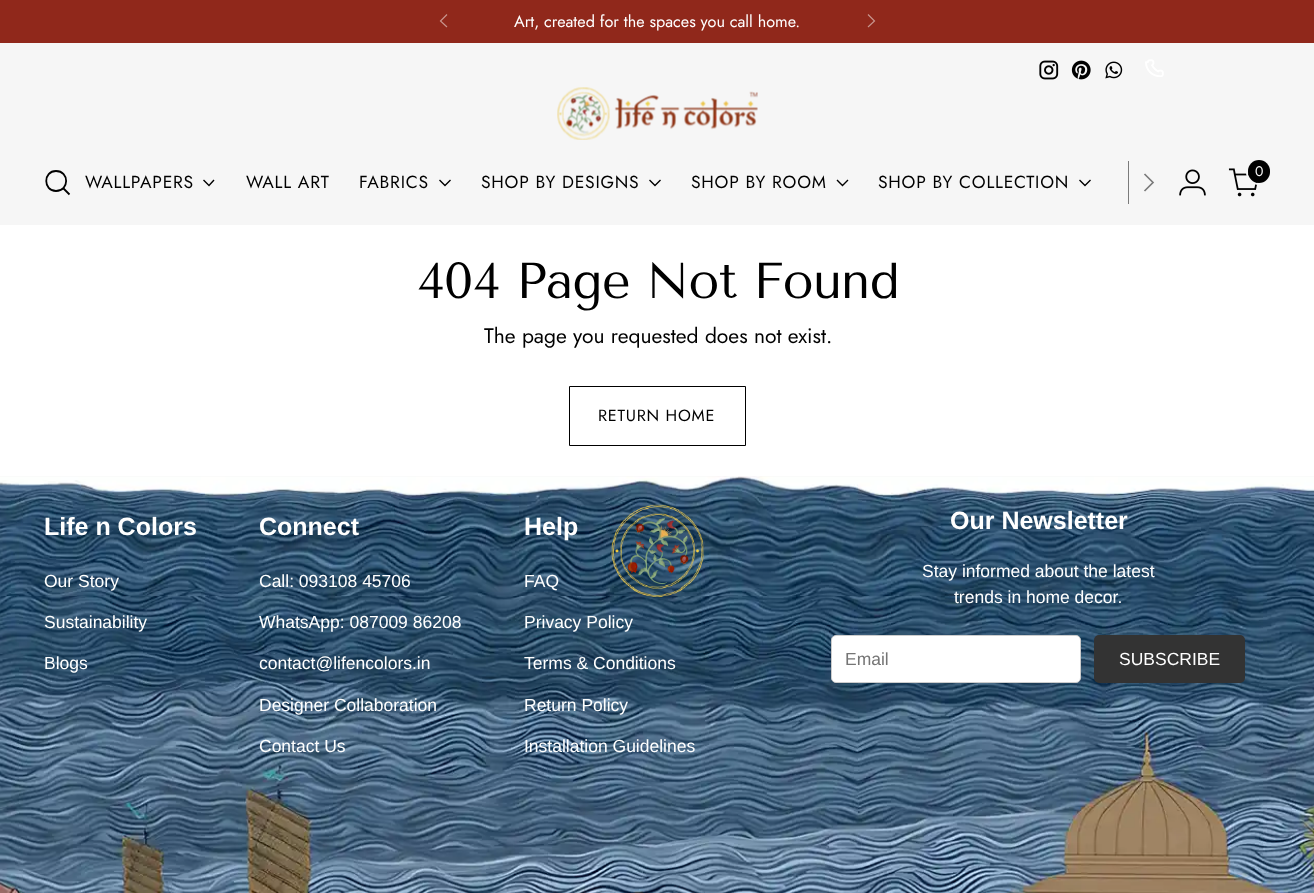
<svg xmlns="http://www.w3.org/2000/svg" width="1314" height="893">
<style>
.a{font:16.25px Jost;fill:#fff}
.b{font:17.5px Jost;letter-spacing:0.75px;fill:#000}
.c{font:14px Jost;fill:#f6f6f6}
.d{font:50.5px Tenor Sans;letter-spacing:-1px;fill:#000}
.e{font:21px Jost;fill:#000}
.f{font:16.25px Jost;letter-spacing:0.75px;fill:#000}
.g{font:bold 25px Liberation Sans;fill:#fff}
.h{font:17.5px Liberation Sans;fill:#fff}
.i{font:17.5px Liberation Sans;fill:#757575}
</style>
<rect width="100%" height="100%" fill="#fff"/>
<path fill="#90281b" d="M0 0h1314v43H0z"/>
<path fill="none" stroke="#c8948d" stroke-width="1.2" d="M447 14.5l-6.5 6.5l6.5 6"/>
<path fill="none" stroke="#c8948d" stroke-width="1.2" d="M868 27l6.5-6l-6.5-6.5"/>
<path fill="#f6f6f6" d="M0 43h1314v182H0z"/>
<image href="1.png" x="1039" y="60" width="20" height="20"/>
<image href="2.png" x="1071" y="60" width="20" height="20"/>
<image href="3.png" x="1105" y="61" width="18" height="18"/>
<image href="4.png" x="1145" y="59" width="19" height="18"/>
<image href="5.png" x="557" y="87" width="201" height="53"/>
<path fill="none" stroke="#000" stroke-width="1.8" stroke-linecap="round" d="M56 191c13.5 0 13.5-20 0-20c-13 0-13 20 0 20z"/>
<path fill="none" stroke="#000" stroke-width="1.8" d="M63.5 188.5l6 6"/>
<path fill="none" stroke="#000" stroke-width="1.4" d="M203.5 180l5.5 5.5l5-5.5"/>
<path fill="none" stroke="#000" stroke-width="1.4" d="M439.5 180l5.5 5.5l5.5-5.5"/>
<path fill="none" stroke="#000" stroke-width="1.4" d="M649.5 180l5.5 5.5l5.5-5.5"/>
<path fill="none" stroke="#000" stroke-width="1.4" d="M837 180l5.5 5.5l5.5-5.5"/>
<path fill="none" stroke="#000" stroke-width="1.4" d="M1079.5 180l5.5 5.5l5.5-5.5"/>
<path fill="#7b7b7b" d="M1128 161h1v43H1128z"/>
<path fill="none" stroke="#7b7b7b" stroke-width="1.7" d="M1144.5 191l8.5-8.5l-8.5-8.5"/>
<image href="6.png" x="1179" y="169" width="27" height="27"/>
<image href="7.png" x="1228" y="168" width="30" height="29"/>
<rect fill="none" stroke="#f6f6f6" stroke-width="2" x="1247" y="160" width="25" height="24" rx="12"/>
<rect fill="#000" x="1248" y="160" width="22" height="23" rx="11"/>
<path fill="none" stroke="#000" d="M569.5 386.5h176v59H569.5z"/>
<path fill="#f5f5f5" d="M0 476h1314v1H0z"/>
<image href="8.png" x="0" y="476" width="1314" height="417"/>
<image href="9.png" x="611" y="504" width="93" height="94"/>
<rect fill="#fff" stroke="#ccc" x="831.5" y="635.5" width="249" height="47" rx="4.5"/>
<rect fill="#333" x="1094" y="635" width="151" height="48" rx="5"/>
<text class="a" x="514" y="27">Art, created for the spaces you call home.</text>
<text class="b" x="85" y="188">WALLPAPERS</text>
<text class="b" x="246" y="188">WALL ART</text>
<text class="b" x="359" y="188">FABRICS</text>
<text class="b" x="481" y="188">SHOP BY DESIGNS</text>
<text class="b" x="691" y="188">SHOP BY ROOM</text>
<text class="b" x="878" y="188">SHOP BY COLLECTION</text>
<text class="c" x="1255" y="176">0</text>
<text class="d" x="417" y="298">404 Page Not Found</text>
<text class="e" x="484" y="343">The page you requested does not exist.</text>
<text class="f" x="598" y="421">RETURN HOME</text>
<text class="g" x="44" y="535">Life n Colors</text>
<text class="h" x="44" y="587">Our Story</text>
<text class="h" x="44" y="628">Sustainability</text>
<text class="h" x="44" y="669">Blogs</text>
<text class="g" x="950" y="529">Our Newsletter</text>
<text class="h" x="922" y="577">Stay informed about the latest</text>
<text class="h" x="954" y="603">trends in home decor.</text>
<text class="i" x="845" y="665">Email</text>
<text class="h" x="1119" y="665">SUBSCRIBE</text>
<text class="g" x="259" y="535">Connect</text>
<text class="h" x="259" y="587">Call: 093108 45706</text>
<text class="h" x="259" y="628">WhatsApp: 087009 86208</text>
<text class="h" x="259" y="669">contact@lifencolors.in</text>
<text class="h" x="259" y="711">Designer Collaboration</text>
<text class="h" x="259" y="752">Contact Us</text>
<text class="g" x="524" y="535">Help</text>
<text class="h" x="524" y="587">FAQ</text>
<text class="h" x="524" y="628">Privacy Policy</text>
<text class="h" x="524" y="669">Terms &amp; Conditions</text>
<text class="h" x="524" y="711">Return Policy</text>
<text class="h" x="524" y="752">Installation Guidelines</text>
</svg>
